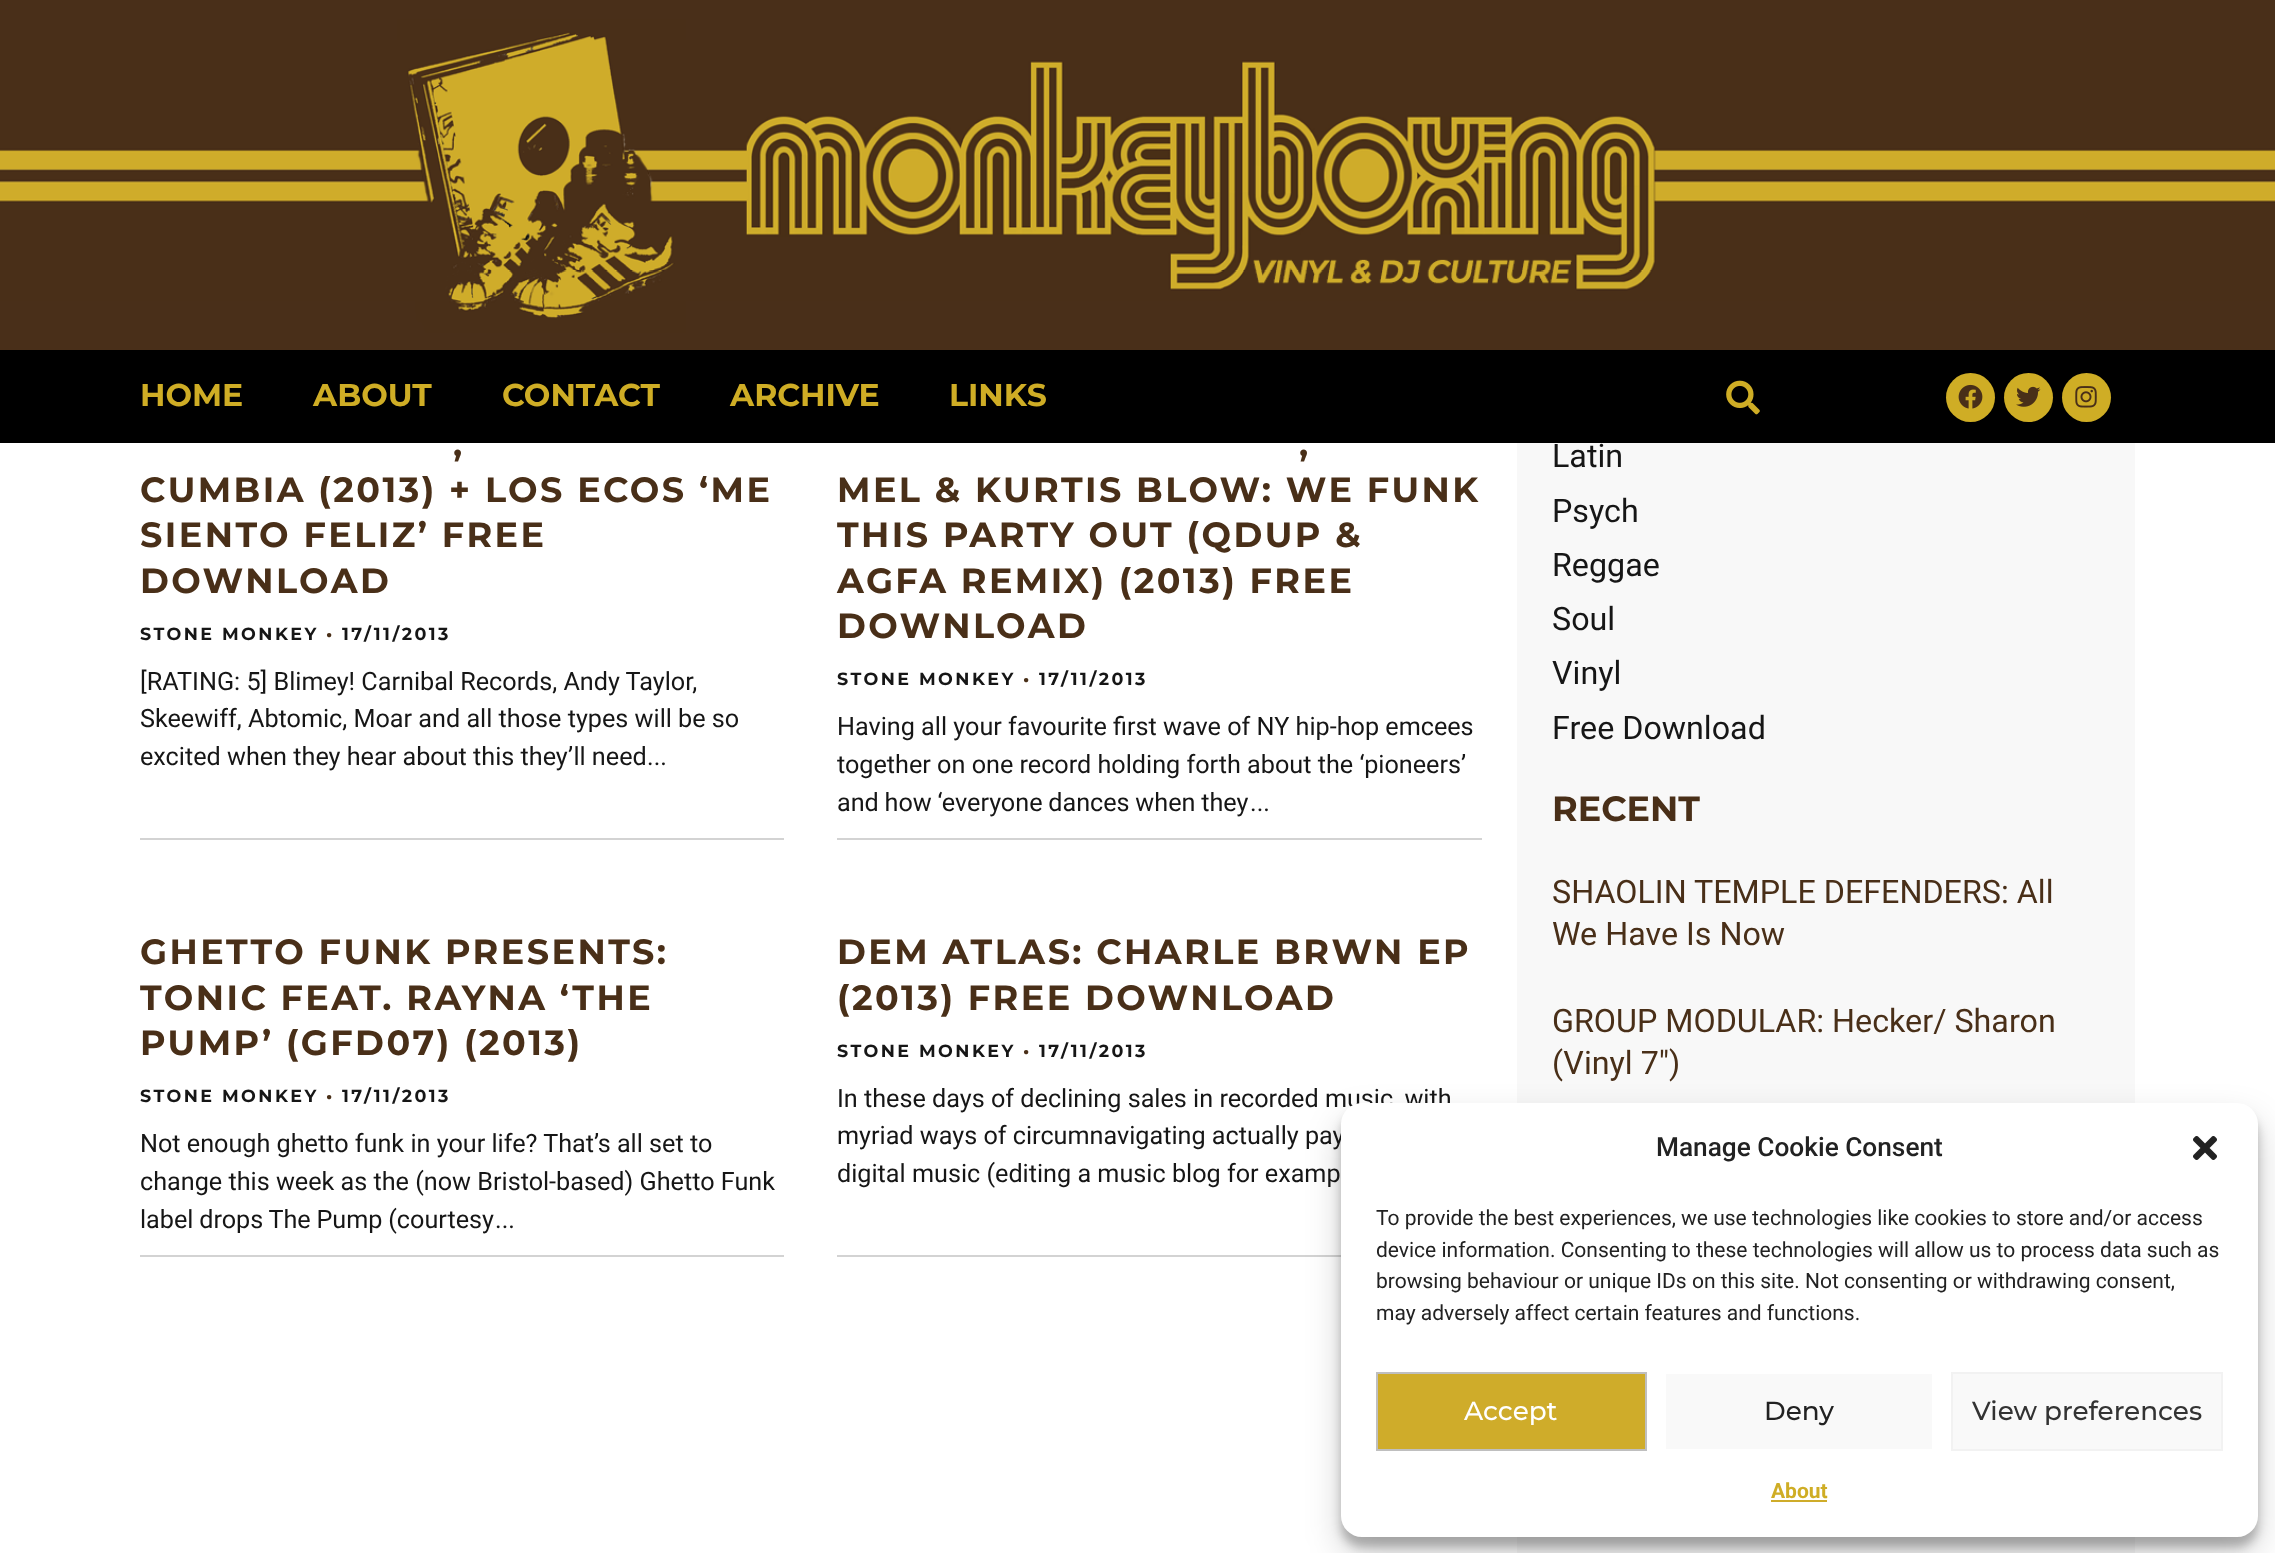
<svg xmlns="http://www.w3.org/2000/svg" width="2275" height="1553">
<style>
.a{font:bold 31.5px Montserrat;fill:#cfad25}
.b{font:bold 35px Montserrat;letter-spacing:2.45px;fill:#492f18}
.c{font:bold 17.5px Montserrat;letter-spacing:2.45px;fill:#161616}
.d{font:bold 17.5px Montserrat;letter-spacing:2.45px;fill:#492f18}
.e{font:25.2px Roboto;fill:#161616}
.f{font:32.25px Roboto;fill:#161616}
.g{font:bold 35px Montserrat;fill:#492f18}
.h{font:32.25px Roboto;fill:#492f18}
.i{font:500 26.25px Roboto;fill:#222}
.j{font:21px Roboto;fill:#222}
.k{font:500 26.25px Montserrat;fill:#fff}
.l{font:500 26.25px Montserrat;fill:#222}
.m{font:500 26.25px Montserrat;fill:#333}
.n{font:bold 21px Roboto;fill:#cfad25}
</style>
<rect width="100%" height="100%" fill="#fff"/>
<image href="1.png" x="0" y="0" width="2275" height="350"/>
<path fill="#000" d="M0 350h2275v93H0z"/>
<image href="2.png" x="1726" y="380" width="34" height="35"/>
<circle fill="#cfad25" cx="1970.5" cy="397.5" r="24.5"/>
<image href="3.png" x="1958" y="384" width="25" height="25"/>
<circle fill="#cfad25" cx="2028.5" cy="397.5" r="24.5"/>
<image href="4.png" x="2016" y="386" width="25" height="21"/>
<circle fill="#cfad25" cx="2086.5" cy="397.5" r="24.5"/>
<image href="5.png" x="2075" y="386" width="22" height="22"/>
<path fill="#d3d3d3" d="M140 838h644v2H140z"/>
<path fill="#d3d3d3" d="M837 838h645v2H837z"/>
<path fill="#d3d3d3" d="M140 1255h644v2H140z"/>
<path fill="#d3d3d3" d="M837 1255h504v2H837z"/>
<path fill="#f8f8f8" d="M1517 443h618v1110H1517z"/>
<rect fill="#0000003b" filter="blur(5px)" x="1341" y="1113" width="917" height="434" rx="21"/>
<rect fill="#00000030" filter="blur(17.5px)" x="1341" y="1120" width="917" height="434" rx="21"/>
<text class="a" x="140" y="406">HOME</text>
<text class="a" x="313" y="406">ABOUT</text>
<text class="a" x="502" y="406">CONTACT</text>
<text class="a" x="730" y="406">ARCHIVE</text>
<text class="a" x="949" y="406">LINKS</text>
<text class="b" x="453" y="456">,</text>
<text class="b" x="140" y="502">CUMBIA (2013) + LOS ECOS ‘ME</text>
<text class="b" x="140" y="547">SIENTO FELIZ’ FREE</text>
<text class="b" x="140" y="593">DOWNLOAD</text>
<text class="c" x="140" y="640">STONE MONKEY</text>
<text class="d" x="326" y="640">•</text>
<text class="c" x="342" y="640">17/11/2013</text>
<text class="e" x="140" y="690">[RATING: 5] Blimey! Carnibal Records, Andy Taylor,</text>
<text class="e" x="140" y="727">Skeewiff, Abtomic, Moar and all those types will be so</text>
<text class="e" x="140" y="765">excited when they hear about this they’ll need</text>
<text class="e" x="647" y="765">...</text>
<text class="b" x="1299" y="456">,</text>
<text class="b" x="837" y="502">MEL &amp; KURTIS BLOW: WE FUNK</text>
<text class="b" x="837" y="547">THIS PARTY OUT (QDUP &amp;</text>
<text class="b" x="837" y="593">AGFA REMIX) (2013) FREE</text>
<text class="b" x="837" y="638">DOWNLOAD</text>
<text class="c" x="837" y="685">STONE MONKEY</text>
<text class="d" x="1023" y="685">•</text>
<text class="c" x="1039" y="685">17/11/2013</text>
<text class="e" x="837" y="735">Having all your favourite first wave of NY hip-hop emcees</text>
<text class="e" x="837" y="773">together on one record holding forth about the ‘pioneers’</text>
<text class="e" x="837" y="811" word-spacing="-0.5">and how ‘everyone dances when they</text>
<text class="e" x="1250" y="811">...</text>
<text class="b" x="140" y="964">GHETTO FUNK PRESENTS:</text>
<text class="b" x="140" y="1010">TONIC FEAT. RAYNA ‘THE</text>
<text class="b" x="140" y="1055">PUMP’ (GFD07) (2013)</text>
<text class="c" x="140" y="1102">STONE MONKEY</text>
<text class="d" x="326" y="1102">•</text>
<text class="c" x="342" y="1102">17/11/2013</text>
<text class="e" x="140" y="1152">Not enough ghetto funk in your life? That’s all set to</text>
<text class="e" x="140" y="1190">change this week as the (now Bristol-based) Ghetto Funk</text>
<text class="e" x="140" y="1228" word-spacing="-0.5">label drops The Pump (courtesy</text>
<text class="e" x="495" y="1228">...</text>
<text class="b" x="837" y="964">DEM ATLAS: CHARLE BRWN EP</text>
<text class="b" x="837" y="1010">(2013) FREE DOWNLOAD</text>
<text class="c" x="837" y="1057">STONE MONKEY</text>
<text class="d" x="1023" y="1057">•</text>
<text class="c" x="1039" y="1057">17/11/2013</text>
<text class="e" x="837" y="1107">In these days of declining sales in recorded music, with</text>
<text class="e" x="837" y="1144">myriad ways of circumnavigating actually pay</text>
<text class="e" x="837" y="1182">digital music (editing a music blog for examp</text>
<text class="f" x="1552" y="467">Latin</text>
<text class="f" x="1552" y="522">Psych</text>
<text class="f" x="1552" y="576">Reggae</text>
<text class="f" x="1552" y="630">Soul</text>
<text class="f" x="1552" y="684">Vinyl</text>
<text class="f" x="1552" y="739">Free Download</text>
<text class="g" x="1552" y="821">RECENT</text>
<text class="h" x="1552" y="903">SHAOLIN TEMPLE DEFENDERS: All</text>
<text class="h" x="1552" y="945">We Have Is Now</text>
<text class="h" x="1552" y="1032">GROUP MODULAR: Hecker/ Sharon</text>
<text class="h" x="1552" y="1074">(Vinyl 7″)</text>
<rect fill="#fff" x="1341" y="1103" width="917" height="434" rx="21"/>
<text class="i" x="1656" y="1156">Manage Cookie Consent</text>
<image href="6.png" x="2193" y="1136" width="24" height="24"/>
<text class="j" x="1376" y="1225">To provide the best experiences, we use technologies like cookies to store and/or access</text>
<text class="j" x="1376" y="1257">device information. Consenting to these technologies will allow us to process data such as</text>
<text class="j" x="1376" y="1288">browsing behaviour or unique IDs on this site. Not consenting or withdrawing consent,</text>
<text class="j" x="1376" y="1320">may adversely affect certain features and functions.</text>
<path fill="#cfac2a" stroke="#bfbfbf" stroke-width="2" d="M1377 1373h269v77H1377z"/>
<text class="k" x="1464" y="1420">Accept</text>
<path fill="#f9f9f9" d="M1666 1374h266v75H1666z"/>
<text class="l" x="1764" y="1420">Deny</text>
<path fill="#f9f9f9" stroke="#f2f2f2" stroke-width="2" d="M1952 1373h270v77H1952z"/>
<text class="m" x="1972" y="1420">View preferences</text>
<text class="n" x="1771" y="1498">About</text>
<path fill="#cfac2a" d="M1771 1500h56v2H1771z"/>
</svg>
